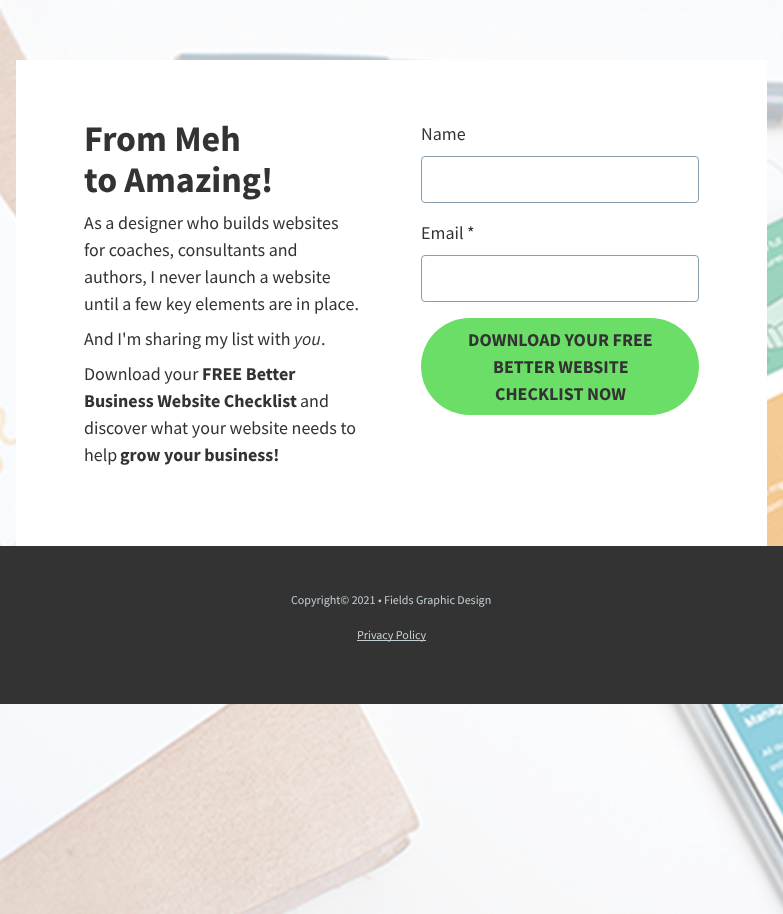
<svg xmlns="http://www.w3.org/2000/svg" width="783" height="914">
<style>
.a{font:bold 36px Source Sans Pro;fill:#333}
.b{font:18px Source Sans Pro;fill:#333}
.c{font:italic 18px Source Sans Pro;fill:#333}
.d{font:bold 18px Source Sans Pro;fill:#333}
.e{font:12px Source Sans Pro;fill:#c3ced5}
</style>
<rect width="100%" height="100%" fill="#fff"/>
<image href="1.png" x="0" y="0" width="783" height="914"/>
<path fill="#fff" d="M16 60h751v20H16z"/>
<path fill="#fff" d="M16 80h751v466H16z"/>
<rect fill="none" stroke="#879dab" x="421.5" y="156.5" width="277" height="46" rx="3.5"/>
<rect fill="none" stroke="#879dab" x="421.5" y="255.5" width="277" height="46" rx="3.5"/>
<rect fill="#6ade66" x="421" y="318" width="278" height="97" rx="48.5"/>
<path fill="#333" d="M0 546h783v158H0z"/>
<path fill="#c3ced5" d="M357 640h69v1H357z"/>
<text class="a" x="84" y="151">From Meh</text>
<text class="a" x="84" y="192">to Amazing!</text>
<text class="b" x="84" y="229">As a designer who builds websites</text>
<text class="b" x="84" y="256">for coaches, consultants and</text>
<text class="b" x="84" y="283">authors, I never launch a website</text>
<text class="b" x="84" y="310">until a few key elements are in place.</text>
<text class="b" x="84" y="345">And I'm sharing my list with</text>
<text class="c" x="294" y="345">you</text>
<text class="b" x="321" y="345">.</text>
<text class="b" x="84" y="380">Download your</text>
<text class="d" x="202" y="380">FREE Better</text>
<text class="d" x="84" y="407">Business Website Checklist</text>
<text class="b" x="300" y="407">and</text>
<text class="b" x="84" y="434">discover what your website needs to</text>
<text class="b" x="84" y="461">help</text>
<text class="d" x="120" y="461">grow your business!</text>
<text class="b" x="421" y="140">Name</text>
<text class="b" x="421" y="239">Email *</text>
<text class="d" x="468" y="346">DOWNLOAD YOUR FREE</text>
<text class="d" x="493" y="373">BETTER WEBSITE</text>
<text class="d" x="495" y="400">CHECKLIST NOW</text>
<text class="e" x="291" y="604">Copyright© 2021 • Fields Graphic Design</text>
<text class="e" x="357" y="639">Privacy Policy</text>
</svg>
